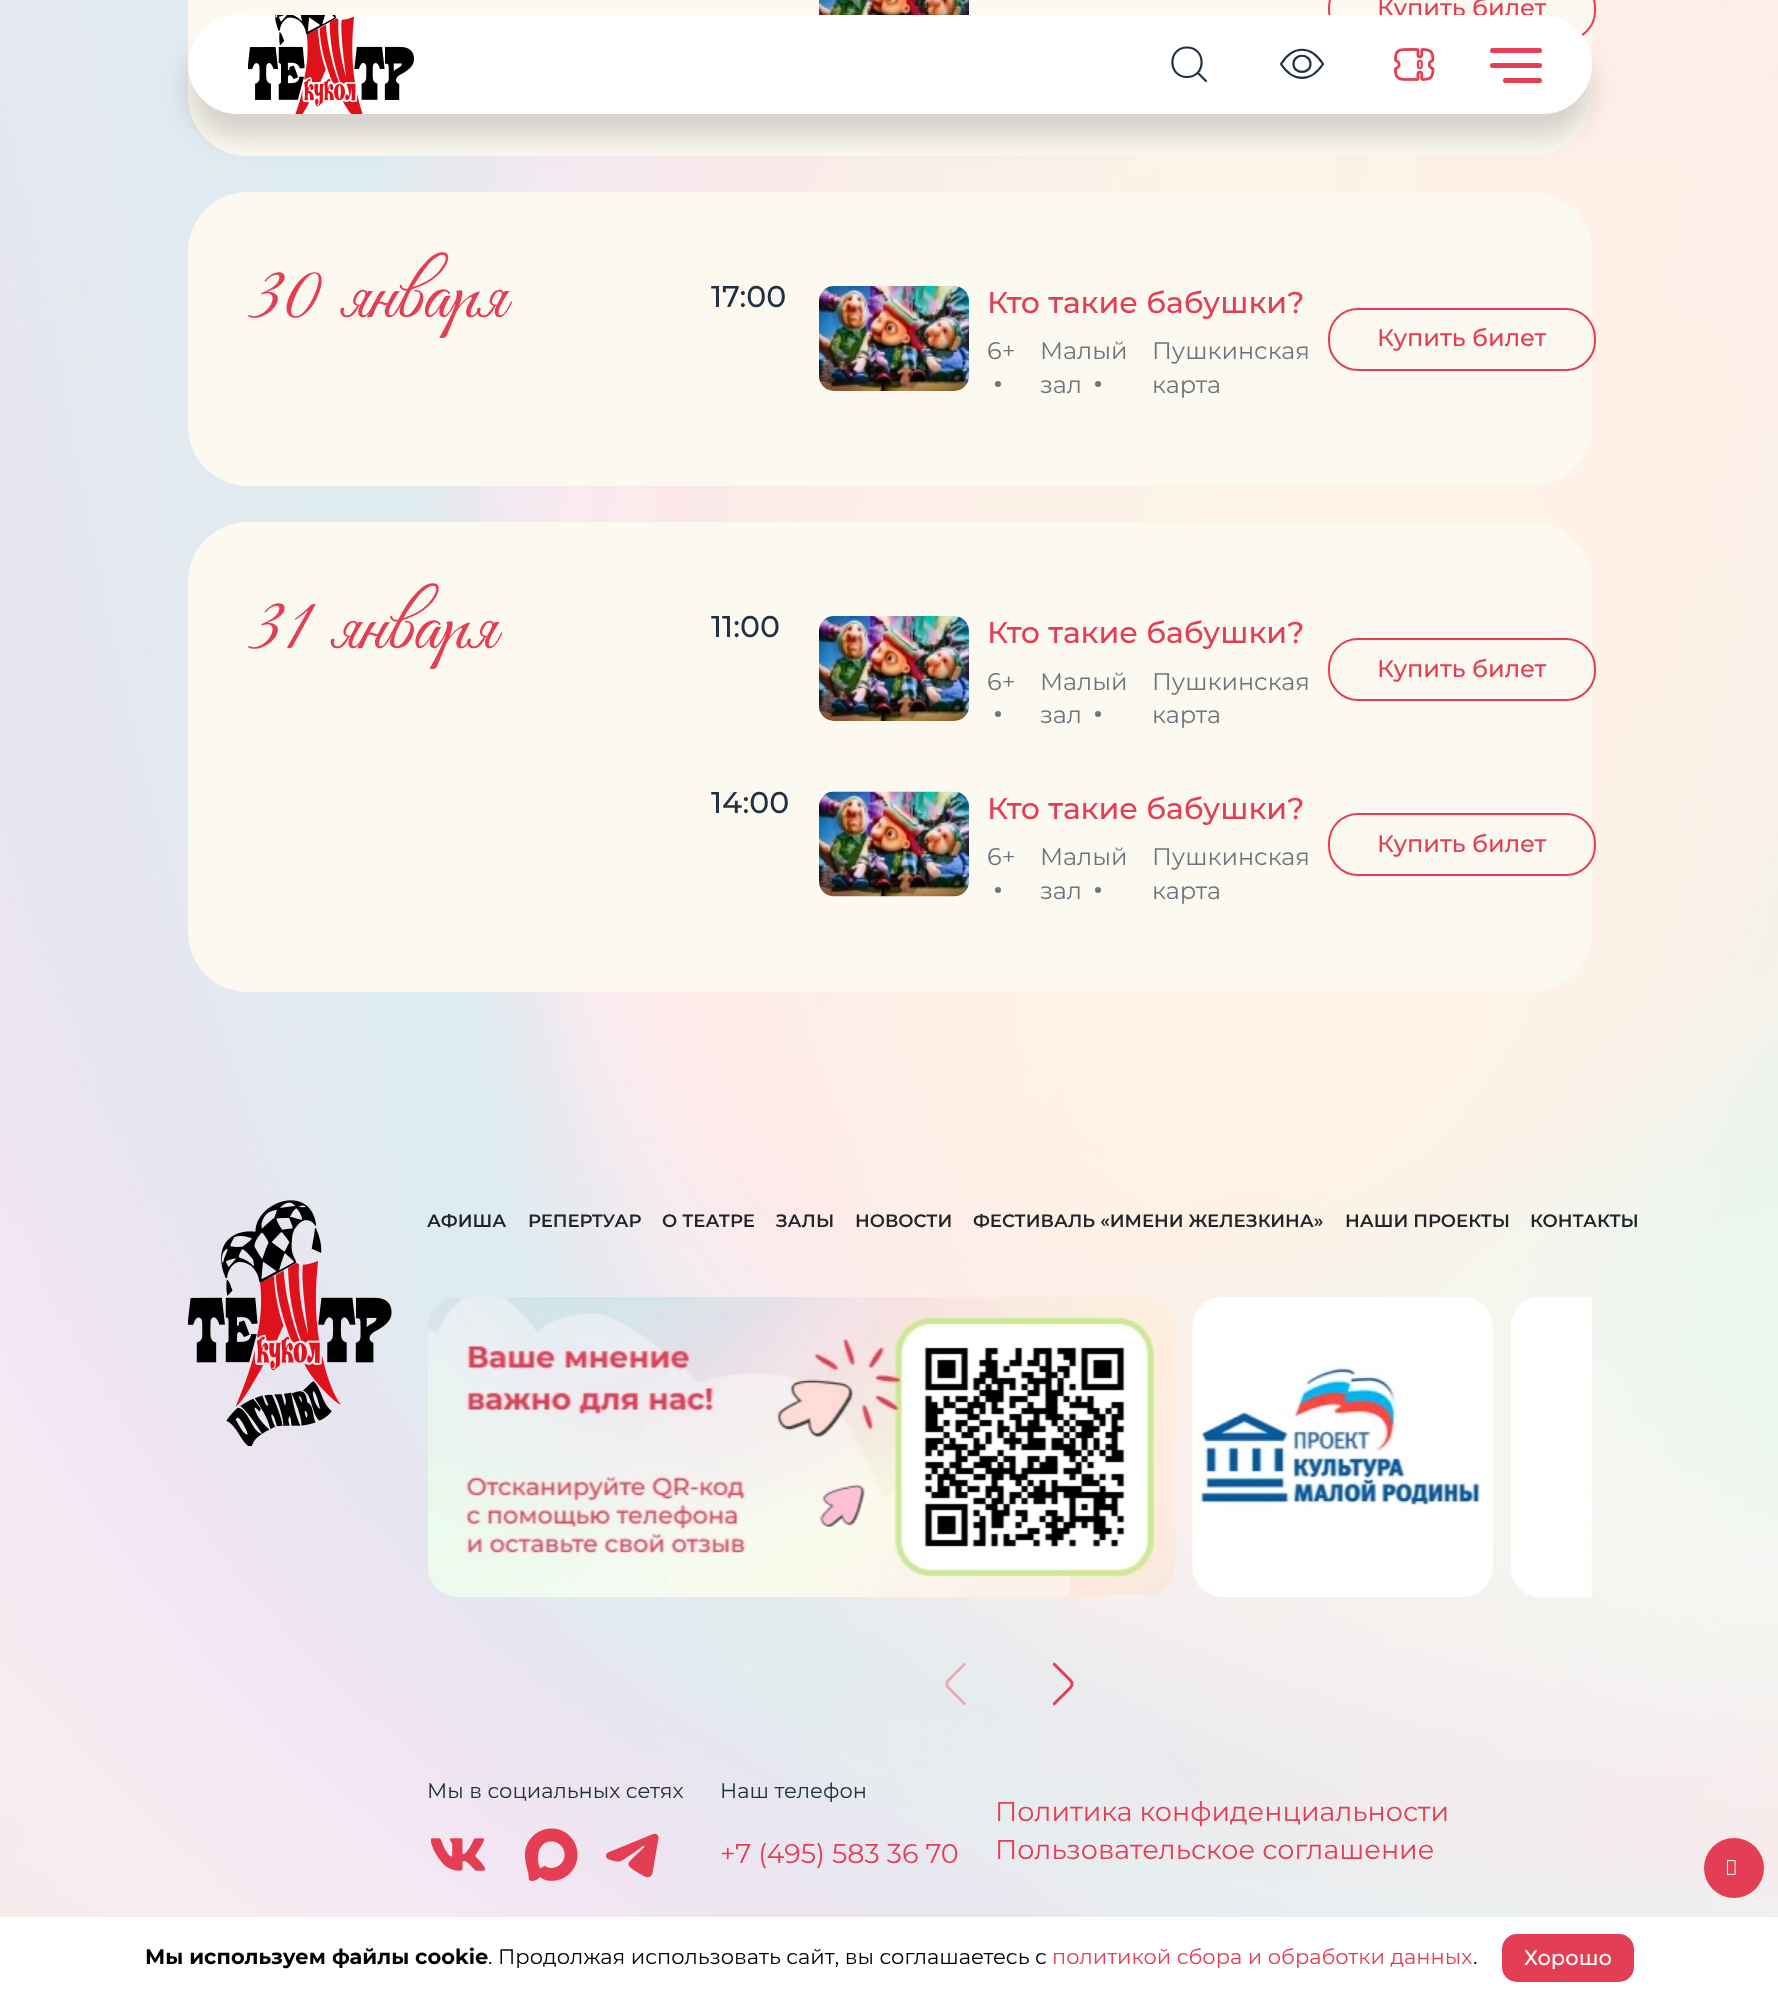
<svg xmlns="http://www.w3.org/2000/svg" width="1778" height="1998">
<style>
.a{font:500 24px Montserrat;fill:#e43e54}
.b{font:77.5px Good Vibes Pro;fill:#e43e54}
.c{font:500 30px Montserrat;fill:#213042}
.d{font:500 30px Montserrat;fill:#e43e54}
.e{font:24px Montserrat;fill:#6c757d}
.f{font:600 18px Montserrat;fill:#212529}
.g{font:21px Montserrat;fill:#213042}
.h{font:27px Montserrat;fill:#e43e54}
.i{font:bold 21px Montserrat;fill:#000}
.j{font:21px Montserrat;fill:#000}
.k{font:21px Montserrat;fill:#e43e54}
.l{font:500 21px Montserrat;fill:#f8f9fa}
</style>
<rect width="100%" height="100%" fill="#fff"/>
<image href="1.png" x="0" y="0" width="1778" height="1917"/>
<rect fill="#fcf9f0" x="188" y="-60" width="1404" height="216" rx="60"/>
<image href="2.png" x="819" y="0" width="150" height="15"/>
<rect fill="none" stroke="#e43e54" stroke-width="2" x="1329" y="-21" width="266" height="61" rx="29"/>
<rect fill="#fcf9f0" x="188" y="192" width="1404" height="294" rx="60"/>
<image href="3.png" x="819" y="286" width="150" height="105"/>
<circle fill="#6c757d" cx="998" cy="384" r="3"/>
<circle fill="#6c757d" cx="1098" cy="384" r="3"/>
<rect fill="none" stroke="#e43e54" stroke-width="2" x="1329" y="309" width="266" height="61" rx="29"/>
<rect fill="#fcf9f0" x="188" y="522" width="1404" height="470" rx="60"/>
<image href="3.png" x="819" y="616" width="150" height="105"/>
<circle fill="#6c757d" cx="998" cy="714" r="3"/>
<circle fill="#6c757d" cx="1098" cy="714" r="3"/>
<rect fill="none" stroke="#e43e54" stroke-width="2" x="1329" y="639" width="266" height="61" rx="29"/>
<image href="4.png" x="819" y="791" width="150" height="106"/>
<circle fill="#6c757d" cx="998" cy="890" r="3"/>
<circle fill="#6c757d" cx="1098" cy="890" r="3"/>
<rect fill="none" stroke="#e43e54" stroke-width="2" x="1329" y="814" width="266" height="61" rx="29"/>
<rect fill="#00000026" filter="blur(12px)" x="188" y="39" width="1404" height="99" rx="49.5"/>
<image href="7.png" x="188" y="1200" width="204" height="246"/>
<image href="8.png" x="428" y="1297" width="747" height="300"/>
<image href="9.png" x="1192" y="1297" width="301" height="300"/>
<image href="10.png" x="1511" y="1297" width="81" height="300"/>
<image href="11.png" x="945" y="1662" width="21" height="44"/>
<image href="12.png" x="1052" y="1662" width="22" height="44"/>
<image href="13.png" x="431" y="1838" width="55" height="33"/>
<image href="14.png" x="525" y="1828" width="53" height="53"/>
<image href="15.png" x="606" y="1833" width="53" height="45"/>
<circle fill="#e43e54" cx="1734" cy="1868" r="30"/>
<image href="16.png" x="1726" y="1860" width="10" height="15"/>
<rect fill="#e43e54" stroke="#e43e54" stroke-width="2" x="1503" y="1935" width="130" height="46" rx="14"/>
<text class="a" x="1377" y="16">Купить билет</text>
<text class="b" x="247" y="317">30 января</text>
<text class="c" x="711" y="307">17:00</text>
<text class="d" x="987" y="313">Кто такие бабушки?</text>
<text class="e" x="987" y="359">6+</text>
<text class="e" x="1040" y="359">Малый</text>
<text class="e" x="1040" y="393">зал</text>
<text class="e" x="1152" y="359">Пушкинская</text>
<text class="e" x="1152" y="393">карта</text>
<text class="a" x="1377" y="346">Купить билет</text>
<text class="b" x="247" y="648">31 января</text>
<text class="c" x="711" y="637">11:00</text>
<text class="d" x="987" y="643">Кто такие бабушки?</text>
<text class="e" x="987" y="690">6+</text>
<text class="e" x="1040" y="690">Малый</text>
<text class="e" x="1040" y="723">зал</text>
<text class="e" x="1152" y="690">Пушкинская</text>
<text class="e" x="1152" y="723">карта</text>
<text class="a" x="1377" y="677">Купить билет</text>
<text class="c" x="711" y="813">14:00</text>
<text class="d" x="987" y="819">Кто такие бабушки?</text>
<text class="e" x="987" y="865">6+</text>
<text class="e" x="1040" y="865">Малый</text>
<text class="e" x="1040" y="899">зал</text>
<text class="e" x="1152" y="865">Пушкинская</text>
<text class="e" x="1152" y="899">карта</text>
<text class="a" x="1377" y="852">Купить билет</text>
<rect fill="#fff" x="188" y="15" width="1404" height="99" rx="49.5"/>
<image href="5.png" x="248" y="15" width="166" height="99"/>
<path fill="none" stroke="#213042" stroke-width="2.2" stroke-linecap="round" stroke-linejoin="round" d="M1187 77c19.5 0 19.5-29.5 0-29.5c-19.5 0-19.5 29.5 0 29.5zm19 4l-8-8"/>
<path fill="none" stroke="#213042" stroke-width="2.2" stroke-linecap="round" d="M1323 64c-12 18.5-30 18.5-42 0c12-19 30-19 42 0zm-12.5 0c0 10.5-17 10.5-17 0c0-11 17-11 17 0z"/>
<image href="6.png" x="1394" y="48" width="41" height="33"/>
<rect fill="#e43e54" x="1490" y="48" width="52" height="5" rx="2.5"/>
<rect fill="#e43e54" x="1490" y="63" width="52" height="5" rx="2.5"/>
<rect fill="#e43e54" x="1503" y="78" width="39" height="5" rx="2.5"/>
<text class="f" x="427" y="1227">АФИША</text>
<text class="f" x="528" y="1227">РЕПЕРТУАР</text>
<text class="f" x="662" y="1227">О ТЕАТРЕ</text>
<text class="f" x="776" y="1227">ЗАЛЫ</text>
<text class="f" x="855" y="1227">НОВОСТИ</text>
<text class="f" x="973" y="1227">ФЕСТИВАЛЬ «ИМЕНИ ЖЕЛЕЗКИНА»</text>
<text class="f" x="1345" y="1227">НАШИ ПРОЕКТЫ</text>
<text class="f" x="1530" y="1227">КОНТАКТЫ</text>
<text class="g" x="427" y="1798">Мы в социальных сетях</text>
<text class="g" x="720" y="1798">Наш телефон</text>
<text class="h" x="720" y="1863">+7 (495) 583 36 70</text>
<text class="h" x="995" y="1821">Политика конфиденциальности</text>
<text class="h" x="995" y="1859">Пользовательское соглашение</text>
<text class="i" x="145" y="1964">Мы используем файлы cookie</text>
<text class="j" x="488" y="1964">. Продолжая использовать сайт, вы соглашаетесь с</text>
<text class="k" x="1052" y="1964">политикой сбора и обработки данных</text>
<text class="j" x="1473" y="1964">.</text>
<text class="l" x="1524" y="1965">Хорошо</text>
</svg>
